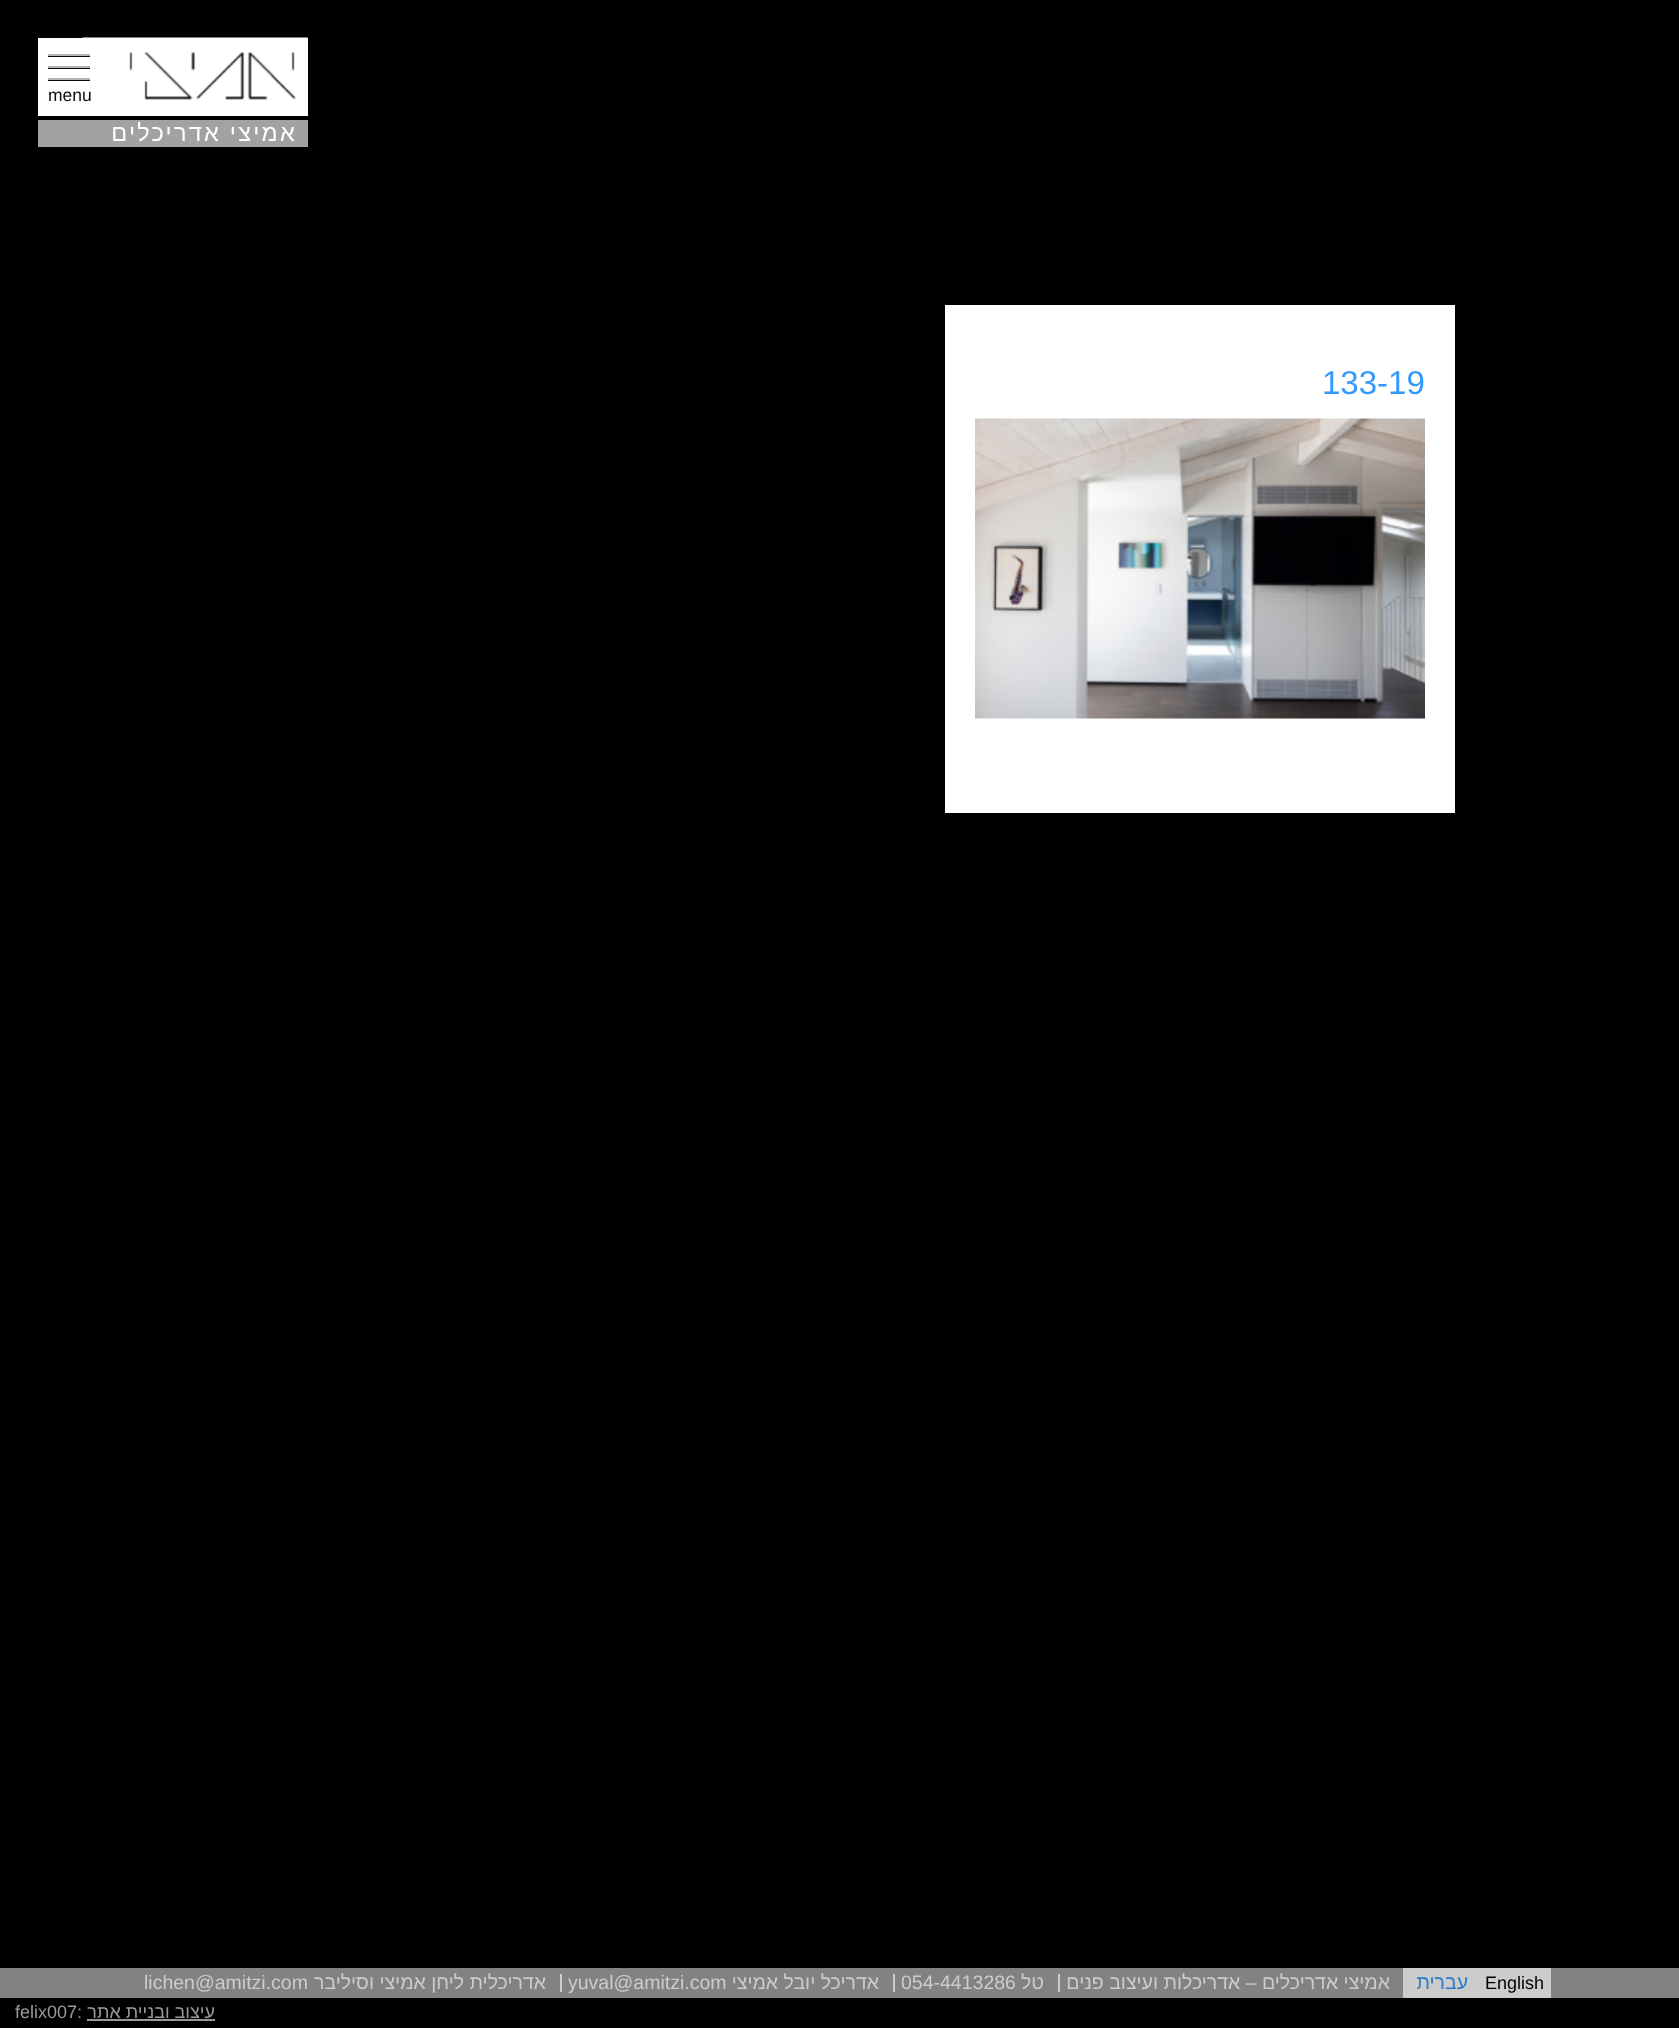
<svg xmlns="http://www.w3.org/2000/svg" width="1679" height="2028">
<style>
.a{font:17.5px Liberation Sans;fill:#0c0c0c}
.b{font:23.5px Liberation Sans;letter-spacing:2.25px;direction:rtl;fill:#fff}
.c{font:33px Liberation Sans;fill:#3399fe}
.d{font:18px Liberation Sans;fill:#000}
.e{font:19.5px Liberation Sans;direction:rtl;fill:#297acb}
.f{font:19.5px Liberation Sans;direction:rtl;fill:#ccc}
.g{font:19.5px Liberation Sans;fill:#ccc}
.h{font:18px Liberation Sans;direction:rtl;fill:#999}
.i{font:18px Liberation Sans;fill:#999}
</style>
<rect width="100%" height="100%" fill="#000"/>
<path fill="#fff" d="M38 38h270v78H38z"/>
<image href="1.png" x="82" y="37" width="226" height="63"/>
<path fill="#0a0a0a" d="M48 56h42v1H48z"/>
<path fill="#b4b4b4" d="M48 54h42v2H48z"/>
<path fill="#0a0a0a" d="M48 68h42v1H48z"/>
<path fill="#b4b4b4" d="M48 66h42v2H48z"/>
<path fill="#0a0a0a" d="M48 80h42v1H48z"/>
<path fill="#b4b4b4" d="M48 78h42v2H48z"/>
<path fill="#a2a2a2" d="M38 120h270v27H38z"/>
<path fill="#fff" d="M945 305h510v508H945z"/>
<image href="2.png" x="975" y="418" width="450" height="301"/>
<path fill="#828282" d="M0 1968h1679v30H0z"/>
<path fill="#ccc" d="M1403 1968h148v30H1403z"/>
<path fill="#ccc" d="M1058 1974h2v18H1058z"/>
<path fill="#ccc" d="M893 1974h2v18H893z"/>
<path fill="#ccc" d="M560 1974h2v18H560z"/>
<path fill="#999" d="M87 2019h128v2H87z"/>
<text class="a" x="48" y="101">menu</text>
<text class="b" x="297" y="141">אמיצי אדריכלים</text>
<text class="c" x="1322" y="394">133-19</text>
<text class="d" x="1485" y="1989">English</text>
<text class="e" x="1468" y="1989">עברית</text>
<text class="f" x="1390" y="1989">אמיצי אדריכלים – אדריכלות ועיצוב פנים</text>
<text class="f" x="1044" y="1989">טל</text>
<text class="g" x="901" y="1989">054-4413286</text>
<text class="f" x="879" y="1989">אדריכל יובל אמיצי</text>
<text class="g" x="568" y="1989">yuval@amitzi.com</text>
<text class="f" x="546" y="1989">אדריכלית ליחן אמיצי וסיליבר</text>
<text class="g" x="144" y="1989">lichen@amitzi.com</text>
<text class="h" x="215" y="2018">עיצוב ובניית אתר</text>
<text class="i" x="15" y="2018">felix007:</text>
</svg>
